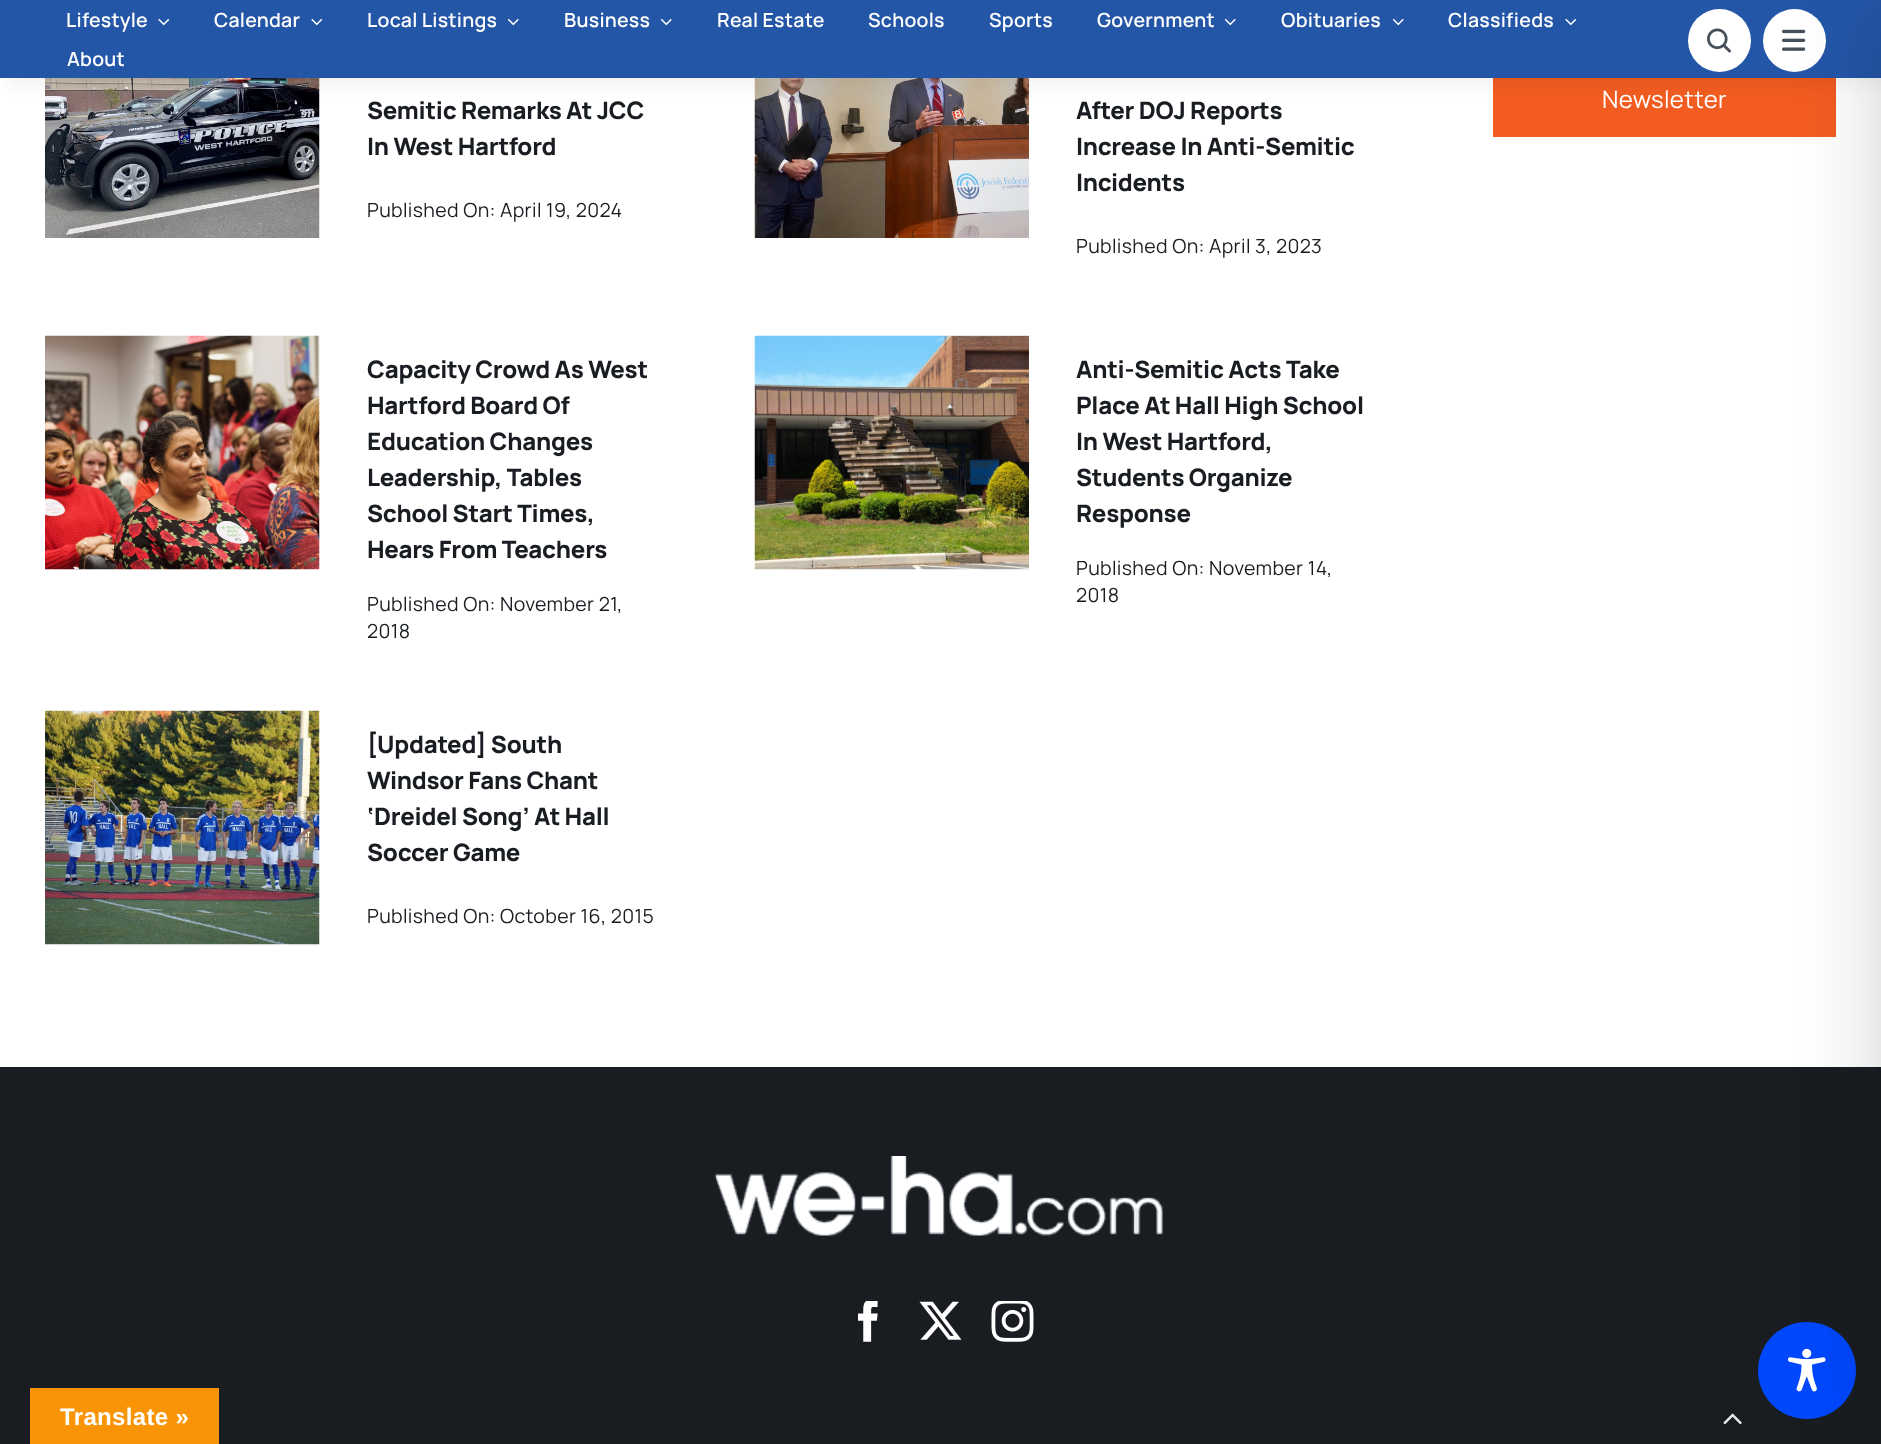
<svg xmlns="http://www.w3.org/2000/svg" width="1881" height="1444">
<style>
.a{font:600 19.5px Manrope;letter-spacing:0.25px;fill:#fff}
.b{font:800 24px Manrope;letter-spacing:-0.25px;fill:#191d21}
.c{font:19.5px Manrope;letter-spacing:0.35px;fill:#191d21}
.d{font:24px Manrope;letter-spacing:0.35px;fill:#fff}
.e{font:bold 24px Liberation Sans;letter-spacing:0.35px;fill:#fff}
</style>
<rect width="100%" height="100%" fill="#fff"/>
<image href="5.png" x="45" y="78" width="275" height="160"/>
<image href="6.png" x="754" y="78" width="275" height="160"/>
<path fill="#f25c21" d="M1493 78h343v59H1493z"/>
<path fill="#0203030d" filter="blur(7.5px)" d="M8 8h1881v78H8z"/>
<path fill="#2456a7" d="M0 0h1881v78H0z"/>
<image href="1.png" x="158" y="18" width="12" height="8"/>
<image href="1.png" x="311" y="18" width="12" height="8"/>
<image href="2.png" x="507" y="18" width="12" height="8"/>
<image href="2.png" x="660" y="18" width="12" height="8"/>
<image href="2.png" x="1224" y="18" width="12" height="8"/>
<image href="2.png" x="1392" y="18" width="12" height="8"/>
<image href="1.png" x="1565" y="18" width="12" height="8"/>
<circle fill="#fff" cx="1719.5" cy="40.5" r="31.5"/>
<image href="3.png" x="1707" y="28" width="24" height="25"/>
<circle fill="#fff" cx="1794.5" cy="40.5" r="31.5"/>
<image href="4.png" x="1782" y="29" width="24" height="22"/>
<image href="7.png" x="45" y="335" width="275" height="235"/>
<image href="8.png" x="754" y="335" width="275" height="235"/>
<image href="9.png" x="45" y="710" width="275" height="235"/>
<path fill="#191d21" d="M0 1067h1881v377H0z"/>
<image href="10.png" x="715" y="1156" width="448" height="80"/>
<image href="11.png" x="858" y="1301" width="20" height="41"/>
<image href="12.png" x="919" y="1301" width="43" height="39"/>
<image href="13.png" x="991" y="1301" width="43" height="41"/>
<rect fill="#0048fe" x="1758" y="1322" width="98" height="97" rx="48.5"/>
<image href="14.png" x="1787" y="1348" width="39" height="44"/>
<path fill="#00000033" filter="blur(45px)" d="M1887 15h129v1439H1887z"/>
<path fill="#f89406" d="M30 1388h189v56H30z"/>
<image href="15.png" x="1723" y="1413" width="19" height="12"/>
<text class="a" x="66" y="27">Lifestyle</text>
<text class="a" x="214" y="27">Calendar</text>
<text class="a" x="367" y="27">Local Listings</text>
<text class="a" x="564" y="27">Business</text>
<text class="a" x="717" y="27">Real Estate</text>
<text class="a" x="868" y="27">Schools</text>
<text class="a" x="989" y="27">Sports</text>
<text class="a" x="1097" y="27">Government</text>
<text class="a" x="1281" y="27">Obituaries</text>
<text class="a" x="1448" y="27">Classifieds</text>
<text class="a" x="67" y="66">About</text>
<text class="b" x="367" y="119">Semitic Remarks At JCC</text>
<text class="b" x="367" y="155">In West Hartford</text>
<text class="c" x="367" y="217">Published On: April 19, 2024</text>
<text class="b" x="1076" y="119">After DOJ Reports</text>
<text class="b" x="1076" y="155">Increase In Anti-Semitic</text>
<text class="b" x="1076" y="191">Incidents</text>
<text class="c" x="1076" y="253">Published On: April 3, 2023</text>
<text class="b" x="367" y="378">Capacity Crowd As West</text>
<text class="b" x="367" y="414">Hartford Board Of</text>
<text class="b" x="367" y="450">Education Changes</text>
<text class="b" x="367" y="486">Leadership, Tables</text>
<text class="b" x="367" y="522">School Start Times,</text>
<text class="b" x="367" y="558">Hears From Teachers</text>
<text class="c" x="367" y="611">Published On: November 21,</text>
<text class="c" x="367" y="638">2018</text>
<text class="b" x="1076" y="378">Anti-Semitic Acts Take</text>
<text class="b" x="1076" y="414">Place At Hall High School</text>
<text class="b" x="1076" y="450">In West Hartford,</text>
<text class="b" x="1076" y="486">Students Organize</text>
<text class="b" x="1076" y="522">Response</text>
<text class="c" x="1076" y="575">Published On: November 14,</text>
<text class="c" x="1076" y="602">2018</text>
<text class="b" x="367" y="753">[Updated] South</text>
<text class="b" x="367" y="789">Windsor Fans Chant</text>
<text class="b" x="367" y="825">‘Dreidel Song’ At Hall</text>
<text class="b" x="367" y="861">Soccer Game</text>
<text class="c" x="367" y="923">Published On: October 16, 2015</text>
<text class="d" x="1602" y="108">Newsletter</text>
<text class="e" x="60" y="1425">Translate »</text>
</svg>
